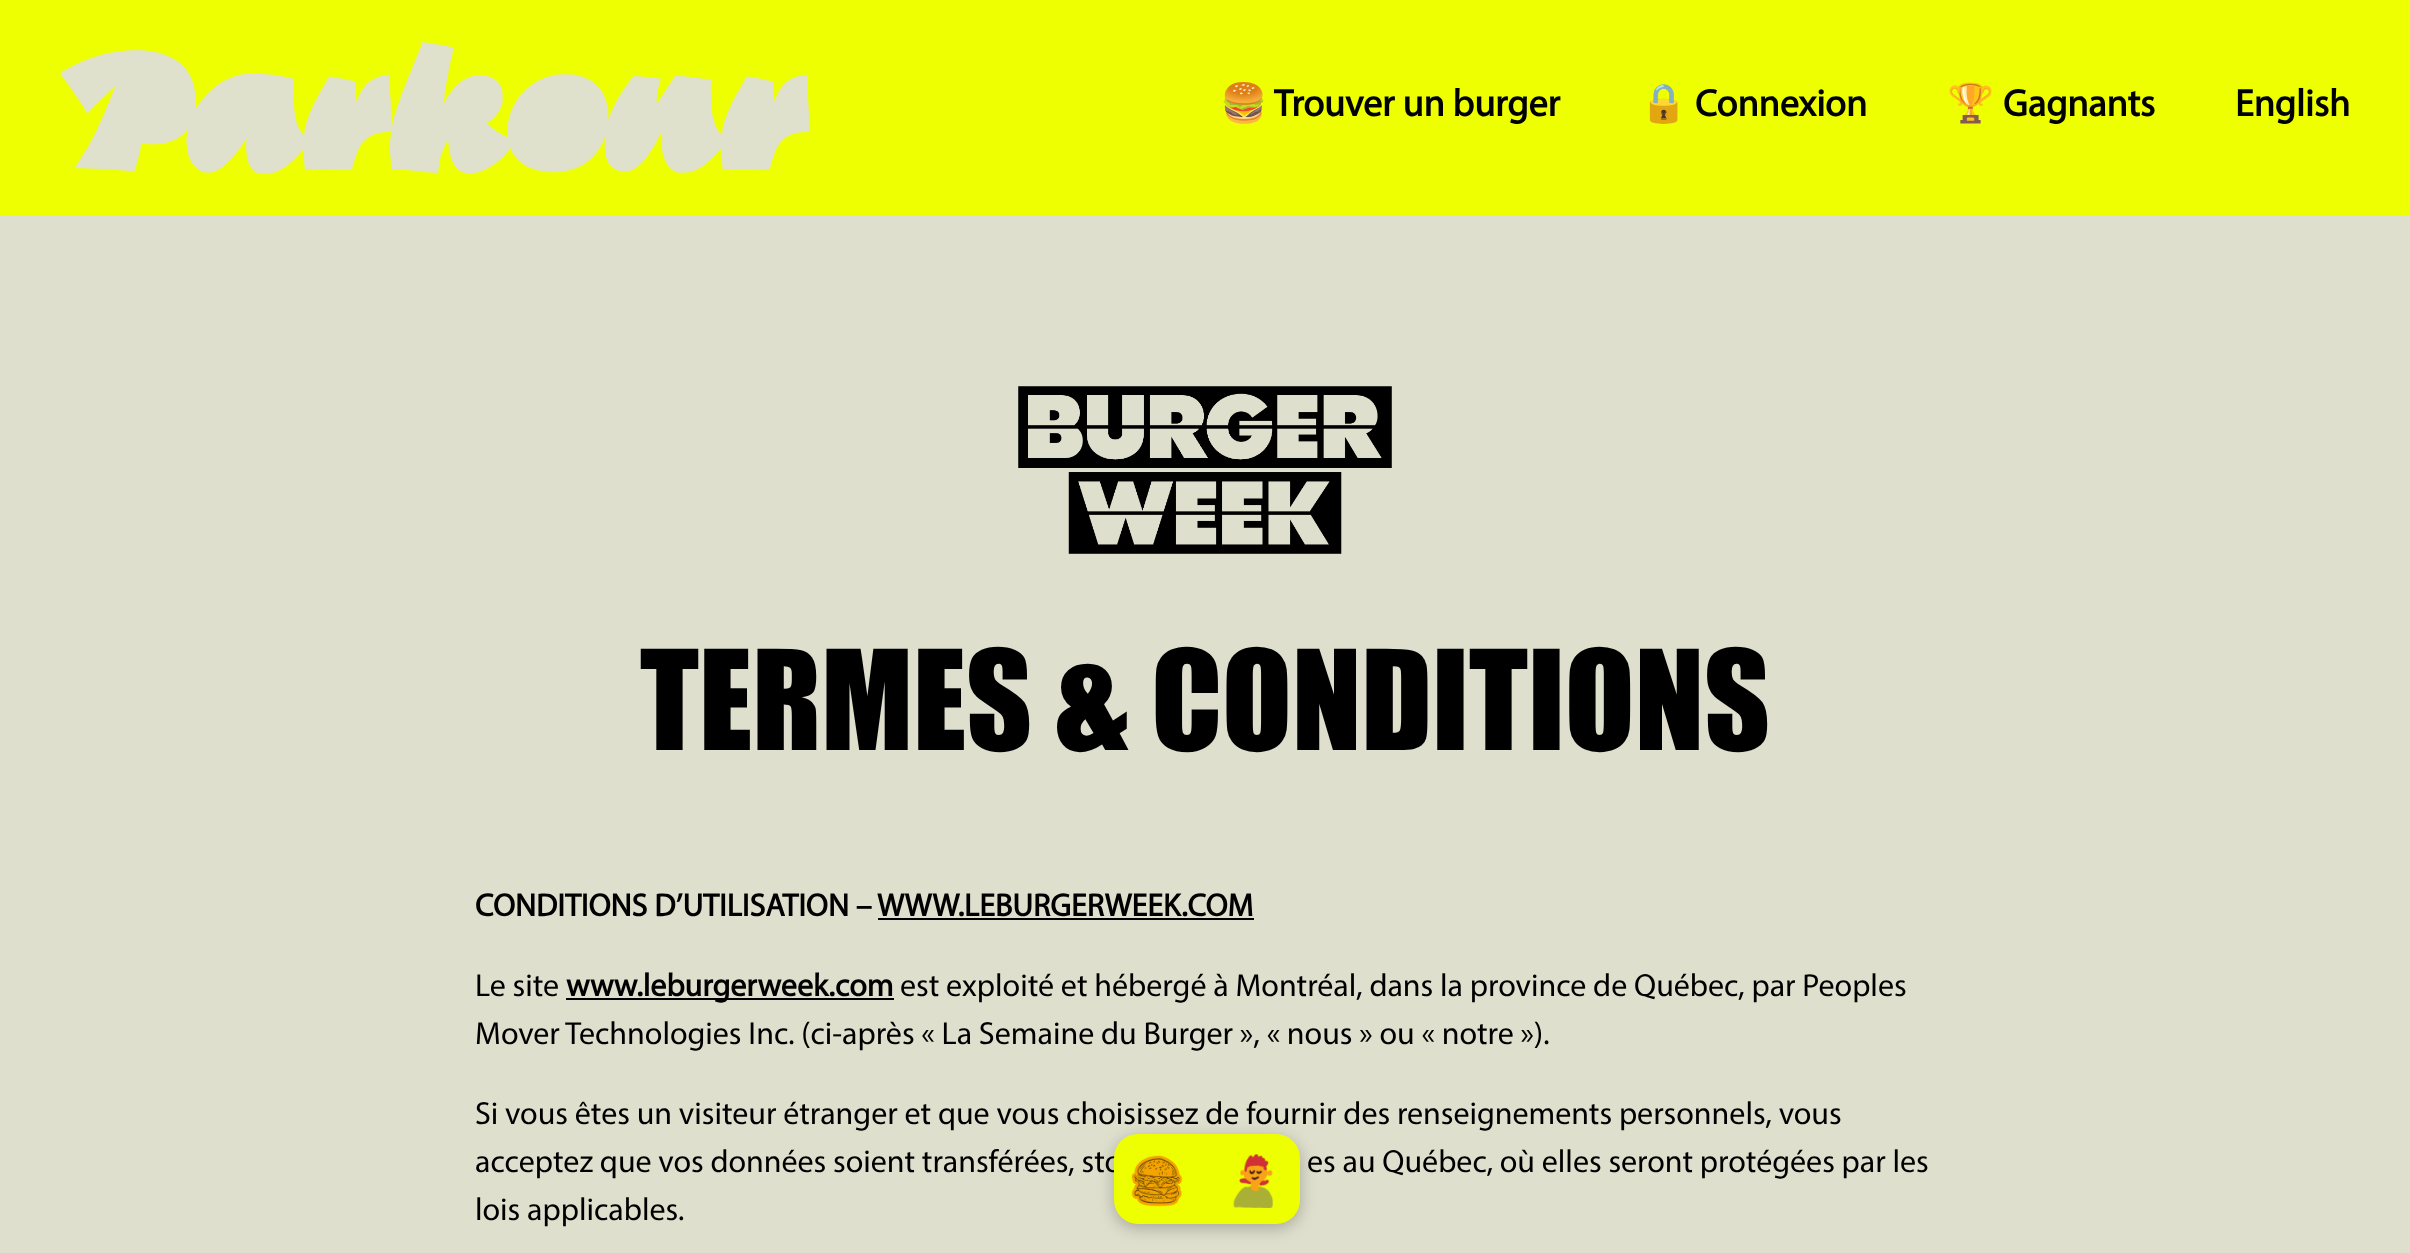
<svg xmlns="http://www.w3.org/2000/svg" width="2410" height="1253">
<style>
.a{font:bold 38px Noto Color Emoji;fill:#000}
.b{font:bold 38px Myriad;fill:#000}
.c{font:128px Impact;fill:#000}
.d{font:bold 32px Myriad;fill:#000}
.e{font:32px Myriad;fill:#000}
</style>
<rect width="100%" height="100%" fill="#dfdfce"/>
<path fill="#edff00" d="M0 0h2410v216H0z"/>
<image href="1.png" x="60" y="42" width="750" height="132"/>
<image href="2.png" x="1018" y="386" width="374" height="168"/>
<path fill="#000" d="M878 918h376v2H878z"/>
<path fill="#000" d="M566 998h328v2H566z"/>
<rect fill="#00000040" filter="blur(8px)" x="1114" y="1138" width="186" height="90" rx="24"/>
<text class="a" x="1220" y="116">🍔</text>
<text class="b" x="1274" y="116">Trouver un burger</text>
<text class="a" x="1640" y="116">🔒</text>
<text class="b" x="1695" y="116">Connexion</text>
<text class="a" x="1947" y="116">🏆</text>
<text class="b" x="2003" y="116">Gagnants</text>
<text class="b" x="2235" y="116">English</text>
<text class="c" x="640" y="750">TERMES &amp; CONDITIONS</text>
<text class="d" x="475" y="916">CONDITIONS D’UTILISATION –</text>
<text class="d" x="877" y="916">WWW.LEBURGERWEEK.COM</text>
<text class="e" x="475" y="996">Le site</text>
<text class="d" x="566" y="996">www.leburgerweek.com</text>
<text class="e" x="900" y="996">est exploité et hébergé à Montréal, dans la province de Québec, par Peoples</text>
<text class="e" x="475" y="1044">Mover Technologies Inc. (ci-après « La Semaine du Burger », « nous » ou « notre »).</text>
<text class="e" x="475" y="1124">Si vous êtes un visiteur étranger et que vous choisissez de fournir des renseignements personnels, vous</text>
<text class="e" x="475" y="1172">acceptez que vos données soient transférées, sto</text>
<text class="e" x="1307" y="1172">es au Québec, où elles seront protégées par les</text>
<text class="e" x="475" y="1220">lois applicables.</text>
<rect fill="#edff00" x="1114" y="1134" width="186" height="90" rx="24"/>
<image href="3.png" x="1131" y="1155" width="52" height="52"/>
<image href="4.png" x="1233" y="1154" width="40" height="54"/>
</svg>
